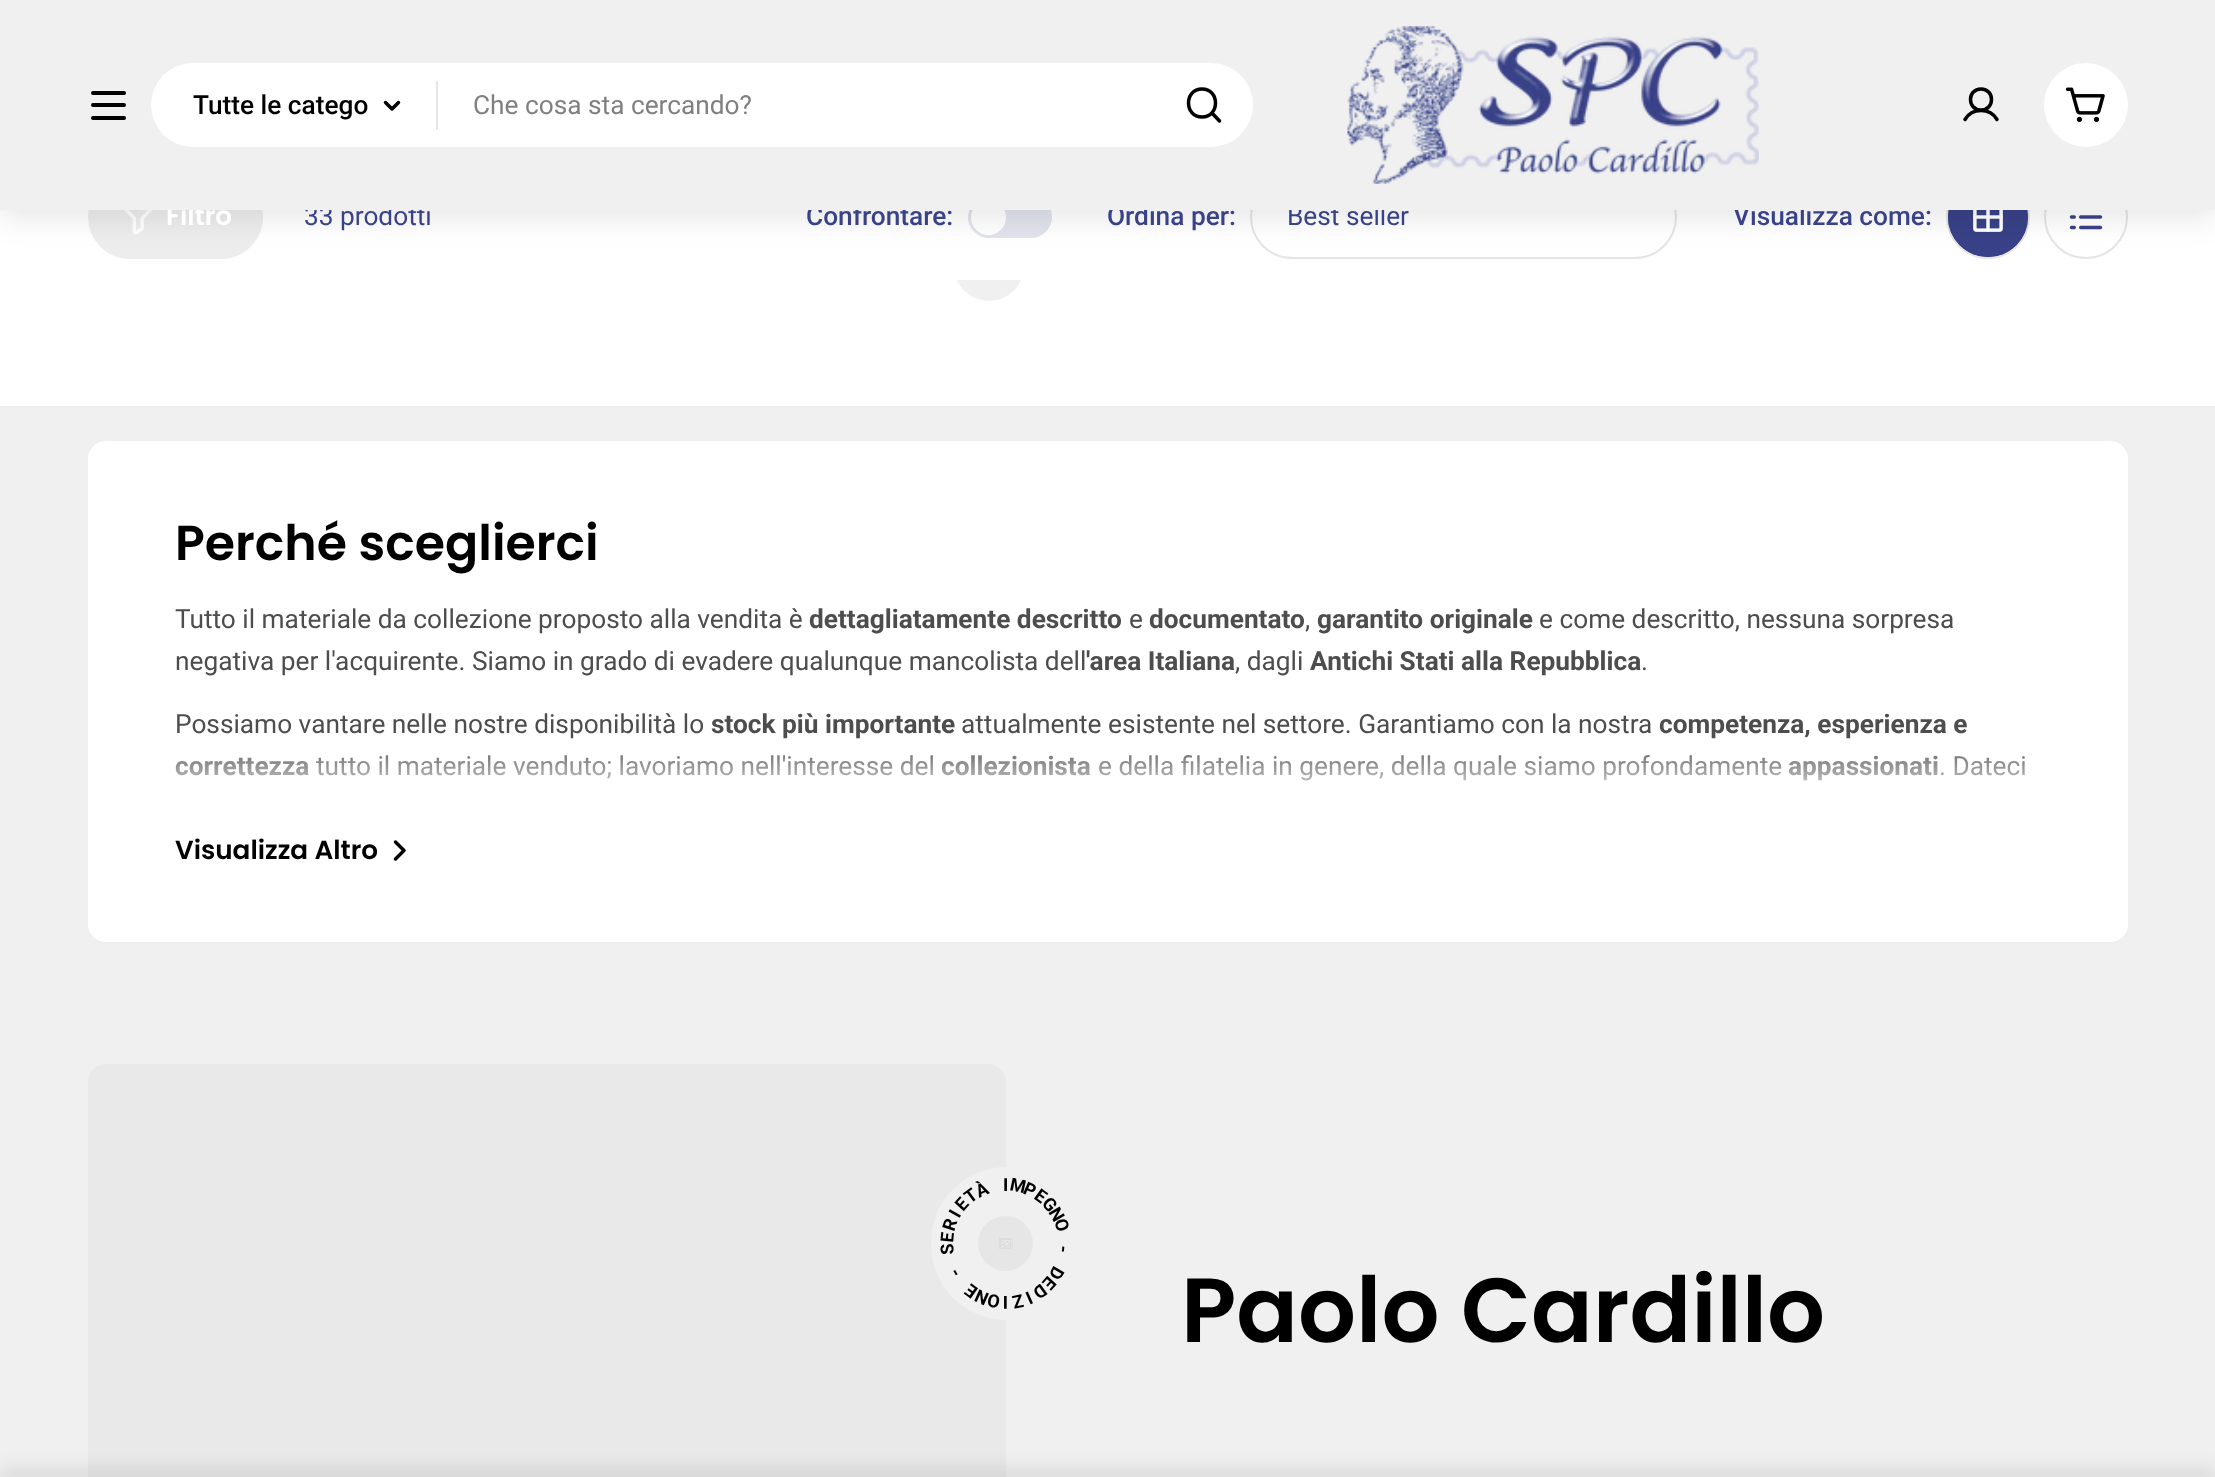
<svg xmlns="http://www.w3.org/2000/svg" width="2215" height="1477">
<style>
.a{font:600 26.25px Poppins;fill:#fff}
.b{font:26.25px Roboto;fill:#394288}
.c{font:500 26.25px Roboto;fill:#394288}
.d{font:500 26.25px Roboto;fill:#000}
.e{font:26.25px Roboto;fill:#808080}
.f{font:600 49px Poppins;fill:#000}
.g{font:26.25px Roboto;fill:#4d4d4d}
.h{font:bold 26.25px Roboto;fill:#4d4d4d}
.i{font:600 26.25px Poppins;fill:#000}
.j{font:bold 18px Roboto;fill:#000}
.k{font:600 91px Poppins;fill:#000}
</style>
<defs>
<clipPath id="clip1"><rect x="1948" y="177" width="80" height="80" rx="40"/></clipPath>
<linearGradient id="g1" gradientUnits="userSpaceOnUse" x1="1108" y1="598" x2="1108" y2="809"><stop offset="0.66" stop-color="#fff" stop-opacity="0"/><stop offset="1" stop-color="#fff"/></linearGradient>
</defs>
<rect width="100%" height="100%" fill="#f0f0f0"/>
<path fill="#fff" d="M0 210h2215v196H0z"/>
<circle fill="#f0f0f0" cx="989" cy="266" r="35"/>
<path fill="#fff" d="M954 231h70v49H954z"/>
<rect fill="#ededed" stroke="#ededed" stroke-width="2" x="89" y="176" width="173" height="82" rx="41"/>
<image href="3.png" x="124" y="210" width="29" height="25"/>
<rect fill="#e1e3ed" x="968" y="196" width="84" height="42" rx="21"/>
<circle fill="#fff" cx="988.5" cy="217.5" r="17.5"/>
<rect fill="none" stroke="#e5e5e5" stroke-width="2" x="1251" y="176" width="425" height="82" rx="41"/>
<circle fill="#394288" stroke="#e5e5e5" stroke-width="2" cx="1988" cy="217" r="41"/>
<g clip-path="url(#clip1)">
<rect fill="#394288" x="1946" y="175" width="82" height="84" rx="41"/>
</g>
<image href="4.png" x="1973" y="210" width="30" height="22"/>
<circle fill="none" stroke="#e5e5e5" stroke-width="2" cx="2086" cy="217" r="41"/>
<image href="5.png" x="2069" y="215" width="34" height="15"/>
<path fill="#0000001a" filter="blur(16px)" d="M0 7h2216v210H0z"/>
<rect fill="#e9e9e9" x="88" y="1064" width="918" height="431" rx="18"/>
<path fill="#00000014" filter="blur(9px)" d="M0 1467h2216v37H0z"/>
<rect fill="#fff" x="88" y="441" width="2040" height="501" rx="18"/>
<path fill="none" stroke="#000" stroke-width="3.5" stroke-linecap="round" stroke-linejoin="round" d="M395.5 842l8.5 8.5l-8.5 8.5"/>
<rect fill="#f0f0f0" x="931" y="1167" width="151" height="153" rx="75.5"/>
<circle fill="#e6e6e6" cx="1005.5" cy="1243.5" r="27.5"/>
<image href="6.png" x="999" y="1238" width="14" height="11"/>
<text class="a" x="166" y="225">Filtro</text>
<text class="b" x="304" y="225">33 prodotti</text>
<text class="c" x="806" y="225">Confrontare:</text>
<text class="c" x="1107" y="225">Ordina per:</text>
<text class="b" x="1287" y="225">Best seller</text>
<text class="c" x="1733" y="225">Visualizza come:</text>
<path fill="#f0f0f0" d="M0 0h2215v210H0z"/>
<rect fill="#fff" x="151" y="63" width="1102" height="84" rx="42"/>
<path fill="none" stroke="#000" stroke-width="3.5" stroke-linecap="round" stroke-linejoin="round" d="M1202 117c18 0 18-28 0-28c-18 0-18 28 0 28zm10-4l7.5 8"/>
<path fill="#e6e6e6" d="M436 81h2v49H436z"/>
<path fill="none" stroke="#000" stroke-width="3.5" stroke-linecap="round" stroke-linejoin="round" d="M398.5 102.5l-6.5 6.5l-6.5-6.5"/>
<text class="d" x="193" y="114">Tutte le catego</text>
<text class="e" x="473" y="114">Che cosa sta cercando?</text>
<rect fill="#000" x="91" y="116" width="35" height="4" rx="2"/>
<rect fill="#000" x="91" y="91" width="35" height="4" rx="2"/>
<rect fill="#000" x="91" y="103" width="35" height="4" rx="2"/>
<circle fill="#fff" cx="2086" cy="105" r="42"/>
<image href="2.png" x="2065" y="87" width="40" height="35"/>
<path fill="none" stroke="#000" stroke-width="3.5" stroke-linecap="round" stroke-linejoin="round" d="M1981 110c14 0 14-21 0-21c-14 0-14 21 0 21zm-16 9.5c7-12 25-12 32 0"/>
<image href="1.png" x="1347" y="26" width="412" height="158"/>
<text class="f" x="175" y="560">Perché sceglierci</text>
<text class="g" x="175" y="628">Tutto il materiale da collezione proposto alla vendita è</text>
<text class="h" x="809" y="628">dettagliatamente descritto</text>
<text class="g" x="1129" y="628">e</text>
<text class="h" x="1149" y="628">documentato</text>
<text class="g" x="1305" y="628">,</text>
<text class="h" x="1317" y="628">garantito originale</text>
<text class="g" x="1539" y="628">e come descritto, nessuna sorpresa</text>
<text class="g" x="175" y="670">negativa per l'acquirente. Siamo in grado di evadere qualunque mancolista dell</text>
<text class="h" x="1086" y="670">'area Italiana</text>
<text class="g" x="1235" y="670">, dagli</text>
<text class="h" x="1310" y="670">Antichi Stati alla Repubblica</text>
<text class="g" x="1641" y="670">.</text>
<text class="g" x="175" y="733">Possiamo vantare nelle nostre disponibilità lo</text>
<text class="h" x="711" y="733">stock più importante</text>
<text class="g" x="961" y="733">attualmente esistente nel settore. Garantiamo con la nostra</text>
<text class="h" x="1659" y="733">competenza, esperienza e</text>
<text class="h" x="175" y="775">correttezza</text>
<text class="g" x="316" y="775">tutto il materiale venduto; lavoriamo nell'interesse del</text>
<text class="h" x="941" y="775">collezionista</text>
<text class="g" x="1098" y="775">e della filatelia in genere, della quale siamo profondamente</text>
<text class="h" x="1788" y="775">appassionati</text>
<text class="g" x="1939" y="775">. Dateci</text>
<path fill="url(#g1)" d="M175 755h1850v26H175z"/>
<text class="i" x="175" y="859">Visualizza Altro</text>
<text class="j" x="970" y="1204" transform="rotate(-36 970 1204)">T</text>
<text class="j" x="979" y="1198" transform="rotate(-24 979 1198)">À</text>
<text class="j" x="1003" y="1191">I</text>
<text class="j" x="1009" y="1190" transform="rotate(12 1009 1190)">M</text>
<text class="j" x="1022" y="1193" transform="rotate(24 1022 1193)">P</text>
<text class="j" x="1033" y="1198" transform="rotate(36 1033 1198)">E</text>
<text class="j" x="963" y="1212" transform="rotate(-48 963 1212)">E</text>
<text class="j" x="1041" y="1204" transform="rotate(48 1041 1204)">G</text>
<text class="j" x="959" y="1219" transform="rotate(-60 959 1219)">I</text>
<text class="j" x="1048" y="1212" transform="rotate(60 1048 1212)">N</text>
<text class="j" x="954" y="1232" transform="rotate(-72 954 1232)">R</text>
<text class="j" x="1054" y="1221" transform="rotate(72 1054 1221)">O</text>
<text class="j" x="953" y="1243" transform="rotate(-84 953 1243)">E</text>
<text class="j" x="954" y="1254" transform="rotate(-96 954 1254)">S</text>
<text class="j" x="1058" y="1245" transform="rotate(96 1058 1245)">-</text>
<text class="j" x="962" y="1273" transform="rotate(-120 962 1273)">-</text>
<text class="j" x="1054" y="1265" transform="rotate(120 1054 1265)">D</text>
<text class="j" x="1048" y="1275" transform="rotate(132 1048 1275)">E</text>
<text class="j" x="1001" y="1296" transform="rotate(-168 1001 1296)">O</text>
<text class="j" x="990" y="1294" transform="rotate(-156 990 1294)">N</text>
<text class="j" x="979" y="1289" transform="rotate(-144 979 1289)">E</text>
<text class="j" x="1008" y="1296" transform="rotate(180 1008 1296)">I</text>
<text class="j" x="1022" y="1294" transform="rotate(168 1022 1294)">Z</text>
<text class="j" x="1029" y="1291" transform="rotate(156 1029 1291)">I</text>
<text class="j" x="1041" y="1283" transform="rotate(144 1041 1283)">D</text>
<text class="k" x="1181" y="1342">Paolo Cardillo</text>
</svg>
